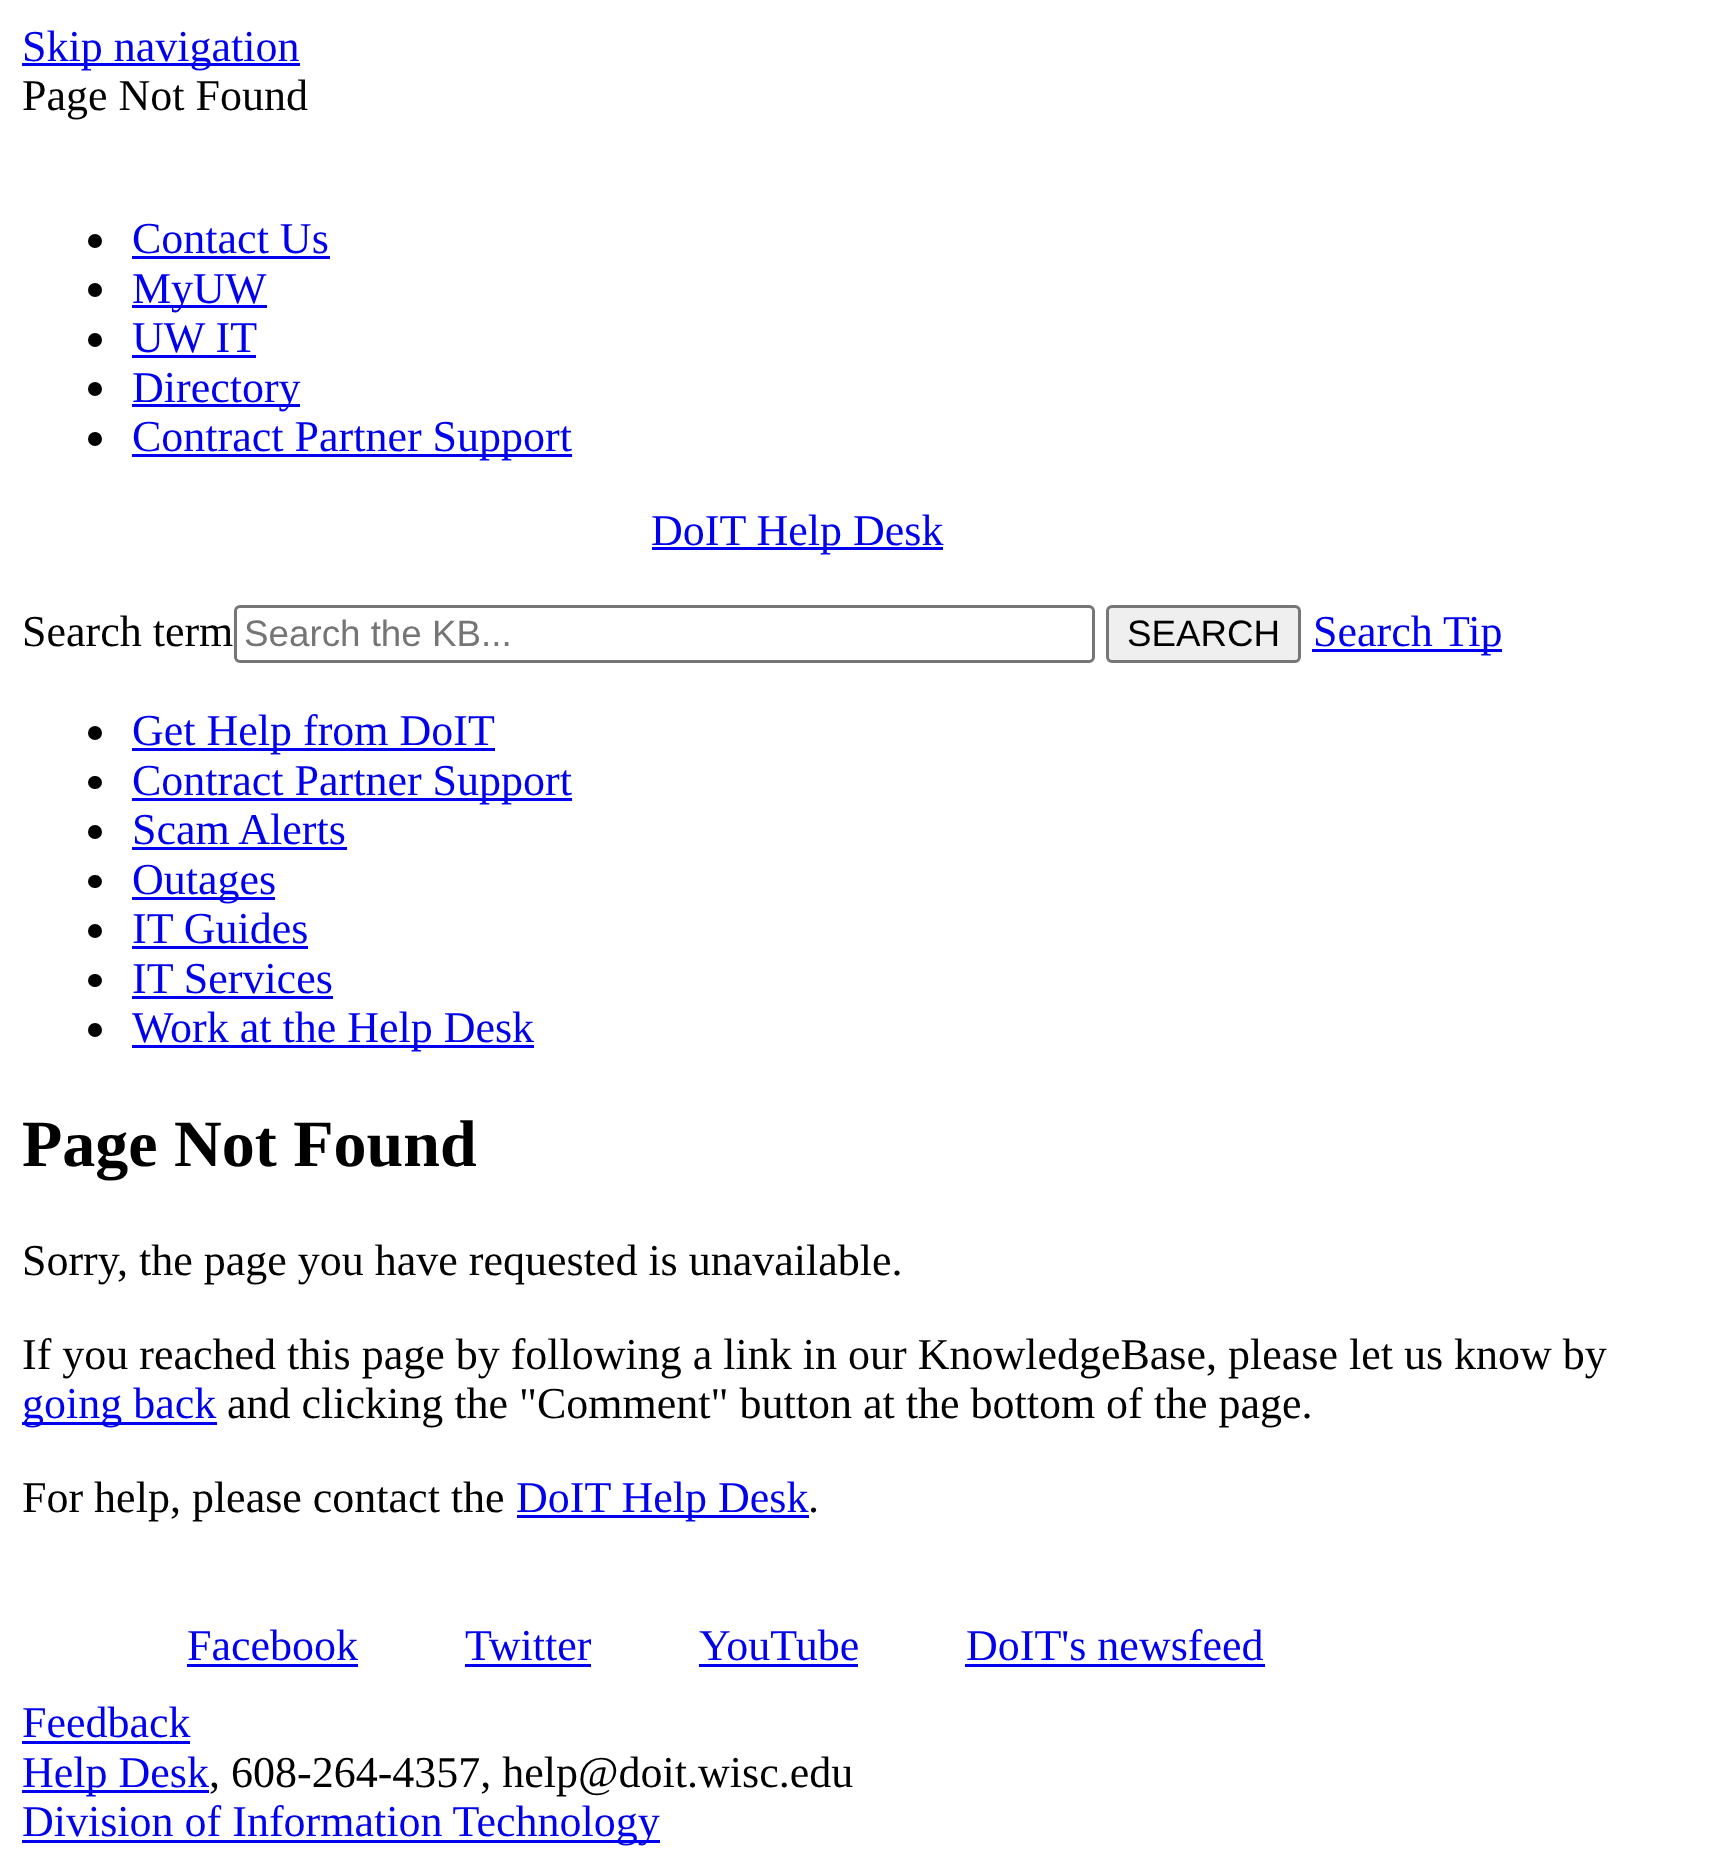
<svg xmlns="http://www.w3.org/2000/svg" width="1736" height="1857">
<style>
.a{font:44px Liberation Serif;fill:#00e}
.b{font:44px Liberation Serif;fill:#000}
.c{font:36.75px Liberation Sans;fill:#757575}
.d{font:36.75px Liberation Sans;fill:#000}
.e{font:bold 66px Liberation Serif;fill:#000}
</style>
<rect width="100%" height="100%" fill="#fff"/>
<path fill="#00e" d="M22 63h278v3H22z"/>
<circle fill="#000" cx="95" cy="241" r="7"/>
<path fill="#00e" d="M132 256h198v3H132z"/>
<circle fill="#000" cx="95" cy="290" r="7"/>
<path fill="#00e" d="M132 305h135v3H132z"/>
<circle fill="#000" cx="95" cy="340" r="7"/>
<path fill="#00e" d="M132 355h124v3H132z"/>
<circle fill="#000" cx="95" cy="389" r="7"/>
<path fill="#00e" d="M132 404h168v3H132z"/>
<circle fill="#000" cx="95" cy="439" r="7"/>
<path fill="#00e" d="M132 454h440v3H132z"/>
<path fill="#00e" d="M652 547h291v3H652z"/>
<rect fill="none" stroke="#767676" stroke-width="3" x="235.5" y="606.5" width="858" height="55" rx="4.5"/>
<rect fill="#efefef" stroke="#767676" stroke-width="3" x="1107.5" y="606.5" width="192" height="55" rx="4.5"/>
<path fill="#00e" d="M1312 649h190v3H1312z"/>
<circle fill="#000" cx="95" cy="733" r="7"/>
<path fill="#00e" d="M132 748h363v3H132z"/>
<rect fill="#000" x="88" y="776" width="14" height="13" rx="6.5"/>
<path fill="#00e" d="M132 798h440v3H132z"/>
<circle fill="#000" cx="95" cy="832" r="7"/>
<path fill="#00e" d="M132 847h215v3H132z"/>
<rect fill="#000" x="88" y="875" width="14" height="13" rx="6.5"/>
<path fill="#00e" d="M132 897h143v3H132z"/>
<circle fill="#000" cx="95" cy="931" r="7"/>
<path fill="#00e" d="M132 946h176v3H132z"/>
<rect fill="#000" x="88" y="974" width="14" height="13" rx="6.5"/>
<path fill="#00e" d="M132 996h201v3H132z"/>
<circle fill="#000" cx="95" cy="1030" r="7"/>
<path fill="#00e" d="M132 1045h402v3H132z"/>
<path fill="#00e" d="M22 1422h195v3H22z"/>
<path fill="#00e" d="M517 1515h292v3H517z"/>
<path fill="#00e" d="M187 1664h171v3H187z"/>
<path fill="#00e" d="M465 1664h126v3H465z"/>
<path fill="#00e" d="M699 1664h159v3H699z"/>
<path fill="#00e" d="M965 1664h300v3H965z"/>
<path fill="#00e" d="M22 1741h168v3H22z"/>
<path fill="#00e" d="M22 1790h187v3H22z"/>
<path fill="#00e" d="M22 1840h638v3H22z"/>
<text class="a" x="22" y="61">Skip navigation</text>
<text class="b" x="22" y="110">Page Not Found</text>
<text class="a" x="132" y="253">Contact Us</text>
<text class="a" x="132" y="303">MyUW</text>
<text class="a" x="132" y="352">UW IT</text>
<text class="a" x="132" y="402">Directory</text>
<text class="a" x="132" y="451">Contract Partner Support</text>
<text class="a" x="651" y="545">DoIT Help Desk</text>
<text class="b" x="22" y="646">Search term</text>
<text class="c" x="244" y="646">Search the KB...</text>
<text class="d" x="1127" y="646">SEARCH</text>
<text class="a" x="1313" y="646">Search Tip</text>
<text class="a" x="132" y="745">Get Help from DoIT</text>
<text class="a" x="132" y="795">Contract Partner Support</text>
<text class="a" x="132" y="844">Scam Alerts</text>
<text class="a" x="132" y="894">Outages</text>
<text class="a" x="132" y="943">IT Guides</text>
<text class="a" x="132" y="993">IT Services</text>
<text class="a" x="132" y="1042">Work at the Help Desk</text>
<text class="e" x="22" y="1166">Page Not Found</text>
<text class="b" x="22" y="1275">Sorry, the page you have requested is unavailable.</text>
<text class="b" x="22" y="1369">If you reached this page by following a link in our KnowledgeBase, please let us know by</text>
<text class="a" x="22" y="1418">going back</text>
<text class="b" x="227" y="1418">and clicking the "Comment" button at the bottom of the page.</text>
<text class="b" x="22" y="1512">For help, please contact the</text>
<text class="a" x="516" y="1512">DoIT Help Desk</text>
<text class="b" x="808" y="1512">.</text>
<text class="a" x="187" y="1660">Facebook</text>
<text class="a" x="465" y="1660">Twitter</text>
<text class="a" x="699" y="1660">YouTube</text>
<text class="a" x="966" y="1660">DoIT's newsfeed</text>
<text class="a" x="22" y="1737">Feedback</text>
<text class="a" x="22" y="1787">Help Desk</text>
<text class="b" x="209" y="1787">, 608-264-4357, help@doit.wisc.edu</text>
<text class="a" x="22" y="1836">Division of Information Technology</text>
</svg>
